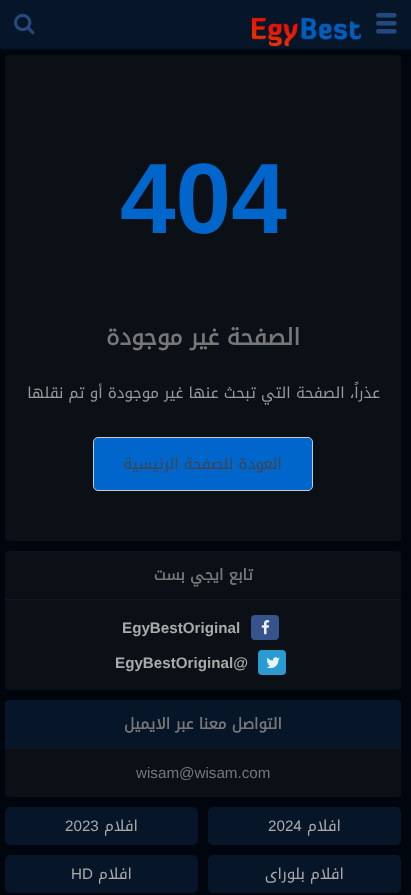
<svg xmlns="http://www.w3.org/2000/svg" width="411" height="895">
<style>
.a{font:bold 100px Liberation Sans;fill:#06c}
.b{font:bold 22.75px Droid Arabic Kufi;direction:rtl;fill:#777}
.c{font:15.2px Droid Arabic Kufi;direction:rtl;fill:#999}
.d{font:15.2px Droid Arabic Kufi;direction:rtl;fill:#444}
.e{font:bold 15.2px Droid Arabic Kufi;direction:rtl;fill:#777}
.f{font:bold 15.2px Liberation Sans;fill:#aaa}
.g{font:15.2px Liberation Sans;fill:#777}
.h{font:15.2px Droid Arabic Kufi;direction:rtl;fill:#aaa}
.i{font:15.2px Liberation Sans;fill:#aaa}
</style>
<rect width="100%" height="100%" fill="#01060e"/>
<path fill="#061932" filter="blur(1px)" d="M0 -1h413v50H0z"/>
<path fill="#071529" d="M0 0h411v48H0z"/>
<image href="1.png" x="376" y="12" width="21" height="22"/>
<image href="2.png" x="251" y="17" width="111" height="30"/>
<image href="3.png" x="14" y="13" width="21" height="22"/>
<rect fill="#0b1017" x="5" y="55" width="396" height="486" rx="4"/>
<rect fill="#06c" stroke="#ccc" x="93.5" y="437.5" width="219" height="53" rx="4.5"/>
<rect fill="#0b1017" x="5" y="551" width="396" height="139" rx="4"/>
<path fill="#0f1620" d="M5 599h396v1H5z"/>
<rect fill="#37538b" x="251" y="615" width="28" height="25" rx="4"/>
<image href="4.png" x="261" y="620" width="9" height="15"/>
<rect fill="#2a9bd0" x="258" y="650" width="28" height="25" rx="4"/>
<image href="5.png" x="266" y="657" width="14" height="12"/>
<rect fill="#0b1017" x="5" y="700" width="396" height="97" rx="4"/>
<path fill="#071529" d="M9 700h388c2 0 4 2 4 4v45h-396v-45c0-2 2-4 4-4z"/>
<path fill="#0f1620" d="M5 748h396v1H5z"/>
<rect fill="#071529" x="208" y="807" width="193" height="38" rx="5"/>
<rect fill="#071529" x="5" y="807" width="193" height="38" rx="5"/>
<rect fill="#071529" x="208" y="855" width="193" height="38" rx="5"/>
<rect fill="#071529" x="5" y="855" width="193" height="38" rx="5"/>
<text class="a" x="120" y="233">404</text>
<text class="b" x="300" y="345">الصفحة غير موجودة</text>
<text class="c" x="380" y="398">عذراً، الصفحة التي تبحث عنها غير موجودة أو تم نقلها</text>
<text class="d" x="282" y="469">العودة للصفحة الرئيسية</text>
<text class="e" x="253" y="580">تابع ايجي بست</text>
<text class="f" x="122" y="633">EgyBestOriginal</text>
<text class="f" x="115" y="668">EgyBestOriginal@</text>
<text class="e" x="282" y="729">التواصل معنا عبر الايميل</text>
<text class="g" x="136" y="778">wisam@wisam.com</text>
<text class="h" x="341" y="831">افلام</text>
<text class="i" x="268" y="831">2024</text>
<text class="h" x="138" y="831">افلام</text>
<text class="i" x="65" y="831">2023</text>
<text class="h" x="344" y="879">افلام بلوراى</text>
<text class="h" x="132" y="879">افلام</text>
<text class="i" x="71" y="879">HD</text>
</svg>
